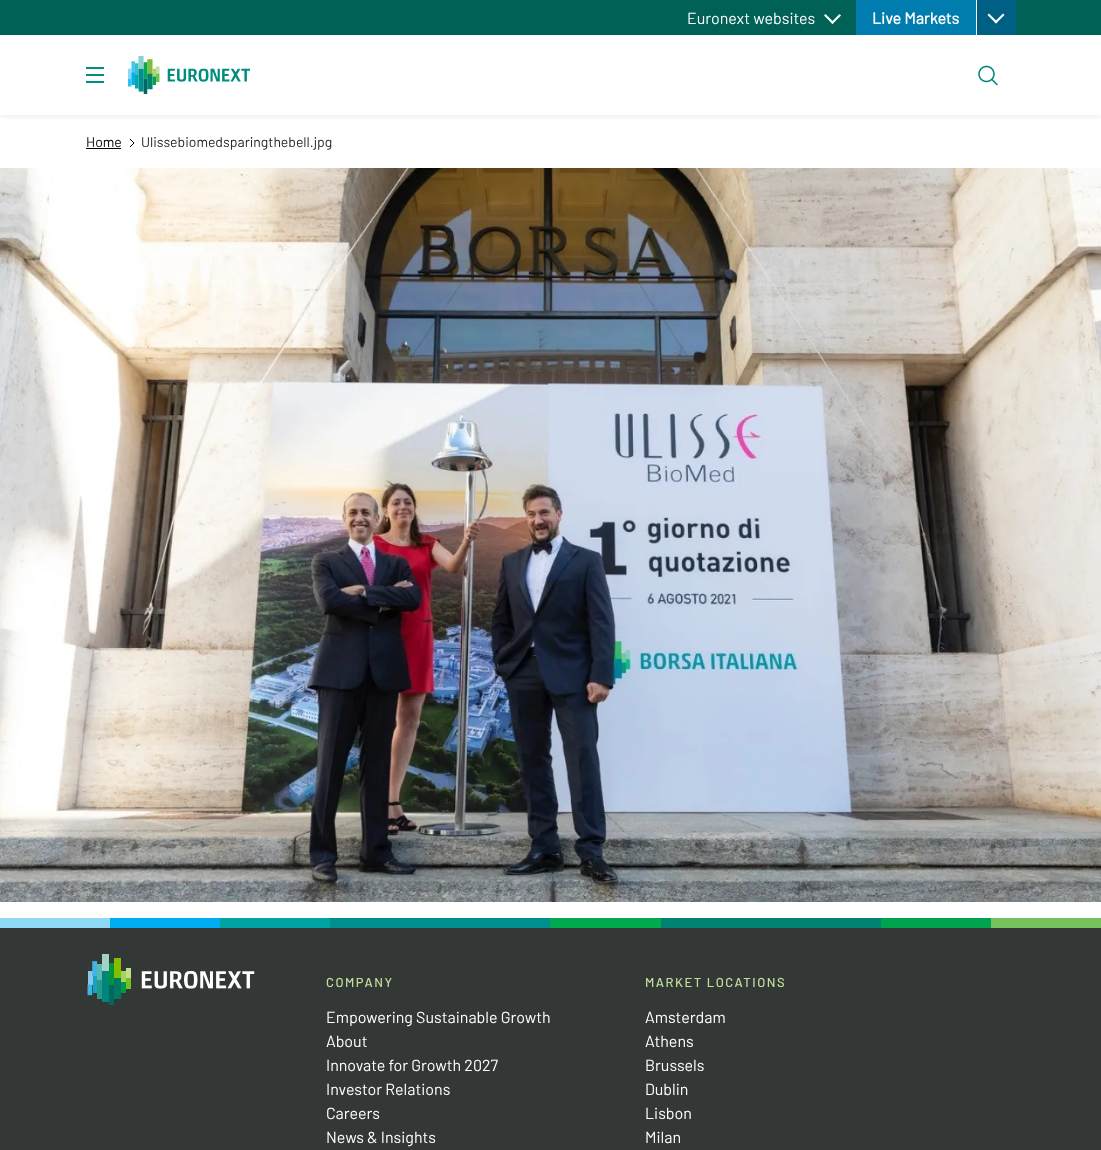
<svg xmlns="http://www.w3.org/2000/svg" width="1101" height="1150">
<style>
.a{font:16px Barlow;fill:#fff}
.b{font:bold 16px Barlow;fill:#fff}
.c{font:14px Barlow;fill:#000}
.d{font:14px Barlow;fill:#252631}
.e{font:500 13px Barlow;letter-spacing:1.5px;fill:#c1de9b}
</style>
<defs>
<clipPath id="clip1"><path d="M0 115h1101v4H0z"/></clipPath>
</defs>
<rect width="100%" height="100%" fill="#fff"/>
<g clip-path="url(#clip1)">
<path fill="#0000001a" filter="blur(5px)" d="M0 35h1101v80H0z"/>
</g>
<path fill="#006157" d="M0 0h1101v35H0z"/>
<path fill="#fff" d="M839.5 14l1.5 1.5l-8.5 8.5l-1.5-1.5z"/>
<path fill="#fff" d="M825.5 14l8.5 8.5l-1.5 1.5l-8.5-8.5z"/>
<path fill="#007dae" d="M856 0h120v35H856z"/>
<path fill="#005f84" d="M977 0h39v35H977z"/>
<path fill="#fff" d="M976 0h1v35H976z"/>
<path fill="#fff" d="M1003 13.5l1.5 1.5l-8.5 8.5l-1.5-1.5z"/>
<path fill="#fff" d="M989 13.5l8.5 8.5l-1.5 1.5l-8.5-8.5z"/>
<path fill="#008d7f" d="M86 74h18v2H86z"/>
<path fill="#008d7f" d="M86 67h18v2H86z"/>
<path fill="#008d7f" d="M86 81h18v2H86z"/>
<image href="1.png" x="128" y="56" width="122" height="38"/>
<image href="2.png" x="978" y="65" width="20" height="21"/>
<path fill="#000" d="M86 148h35v1H86z"/>
<image href="3.png" x="130" y="139" width="4" height="8"/>
<image href="4.png" x="0" y="168" width="1101" height="734"/>
<path fill="#8fd9f7" d="M0 918h110v10H0z"/>
<path fill="#00adf0" d="M110 918h110v10H110z"/>
<path fill="#00a3a3" d="M220 918h110v10H220z"/>
<path fill="#008f8f" d="M330 918h220v10H330z"/>
<path fill="#00ab4f" d="M550 918h111v10H550z"/>
<path fill="#008273" d="M661 918h220v10H661z"/>
<path fill="#00a34d" d="M881 918h110v10H881z"/>
<path fill="#75c25c" d="M991 918h110v10H991z"/>
<path fill="#333836" d="M0 928h1101v222H0z"/>
<image href="5.png" x="87" y="954" width="168" height="51"/>
<text class="a" x="687" y="24">Euronext websites</text>
<text class="b" x="872" y="24">Live Markets</text>
<text class="c" x="86" y="147">Home</text>
<text class="d" x="141" y="147">Ulissebiomedsparingthebell.jpg</text>
<text class="e" x="326" y="987">COMPANY</text>
<text class="a" x="326" y="1023">Empowering Sustainable Growth</text>
<text class="a" x="326" y="1047">About</text>
<text class="a" x="326" y="1071">Innovate for Growth 2027</text>
<text class="a" x="326" y="1095">Investor Relations</text>
<text class="a" x="326" y="1119">Careers</text>
<text class="a" x="326" y="1143">News &amp; Insights</text>
<text class="e" x="645" y="987">MARKET LOCATIONS</text>
<text class="a" x="645" y="1023">Amsterdam</text>
<text class="a" x="645" y="1047">Athens</text>
<text class="a" x="645" y="1071">Brussels</text>
<text class="a" x="645" y="1095">Dublin</text>
<text class="a" x="645" y="1119">Lisbon</text>
<text class="a" x="645" y="1143">Milan</text>
</svg>
